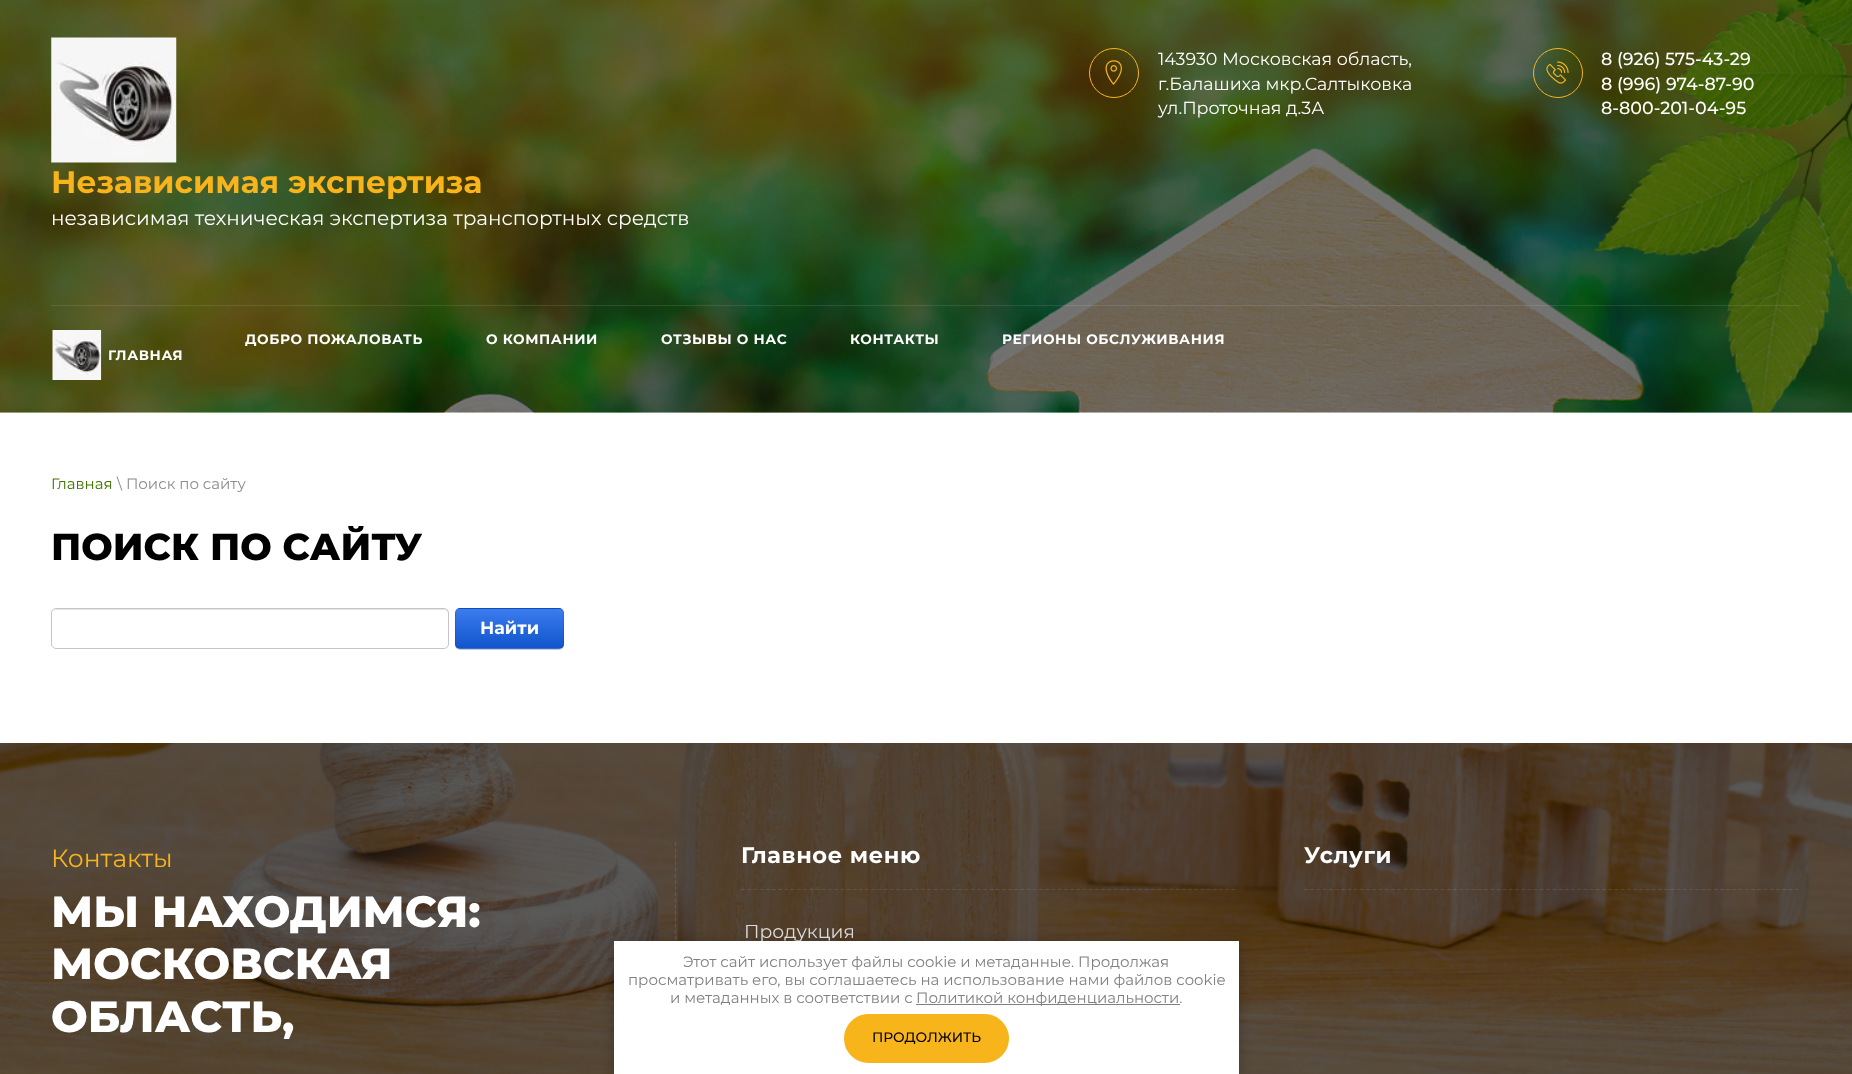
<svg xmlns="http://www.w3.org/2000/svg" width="1852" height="1074">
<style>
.a{font:17.5px Montserrat;fill:#fff}
.b{font:500 17.5px Montserrat;fill:#fff}
.c{font:bold 31.25px Montserrat;fill:#f7b41b}
.d{font:20px Montserrat;fill:#fff}
.e{font:bold 13.75px Montserrat;letter-spacing:0.6px;fill:#fff}
.f{font:15px Montserrat;fill:#417300}
.g{font:15px Montserrat;fill:#8c8c8c}
.h{font:800 37.5px Montserrat;fill:#000}
.i{font:bold 17.5px Montserrat;fill:#fff}
.j{font:25px Montserrat;fill:#f7b41b}
.k{font:800 43.75px Montserrat;fill:#fff}
.l{font:bold 22.5px Montserrat;letter-spacing:0.6px;fill:#fff}
.m{font:18.75px Montserrat;fill:#dbdbdb}
.n{font:15px Montserrat;fill:#808080}
.o{font:500 13.75px Montserrat;fill:#000}
</style>
<defs>
<clipPath id="clip1"><rect x="455" y="608" width="109" height="41" rx="5"/></clipPath>
<linearGradient id="g1" gradientUnits="userSpaceOnUse" x1="509" y1="570" x2="509" y2="609"><stop offset="0" stop-color="#3b7cef"/><stop offset="1" stop-color="#15c"/></linearGradient>
<linearGradient id="g2" gradientUnits="userSpaceOnUse" x1="509" y1="609" x2="509" y2="648"><stop offset="0" stop-color="#3b7cef"/><stop offset="1" stop-color="#15c"/></linearGradient>
<linearGradient id="g3" gradientUnits="userSpaceOnUse" x1="509" y1="648" x2="509" y2="686"><stop offset="0" stop-color="#3b7cef"/><stop offset="1" stop-color="#15c"/></linearGradient>
</defs>
<rect width="100%" height="100%" fill="#fcfcfc"/>
<image href="1.png" x="0" y="0" width="1852" height="413"/>
<image href="2.png" x="1105" y="60" width="17" height="25"/>
<circle fill="none" stroke="#f7b41b" cx="1114" cy="73" r="24.5"/>
<image href="3.png" x="1546" y="61" width="23" height="23"/>
<circle fill="none" stroke="#f7b41b" cx="1558" cy="73" r="24.5"/>
<image href="4.png" x="51" y="37" width="126" height="126"/>
<path fill="#ffffff1a" d="M51 305h1750v1H51z"/>
<image href="5.png" x="52" y="330" width="50" height="50"/>
<path fill="#fff" d="M0 413h1852v330H0z"/>
<path fill="#e6e6e6" d="M56 610h388c2 0 4 2 4 4v-1c0-2-2-4-4-4h-387c-1 0-3 1-3 2z"/>
<rect fill="none" stroke="#c5c5c5" x="51.5" y="608.5" width="397" height="40" rx="4.5"/>
<rect fill="#00000033" filter="blur(0.5px)" x="455" y="609" width="109" height="41" rx="5"/>
<g clip-path="url(#clip1)">
<path fill="url(#g1)" d="M455 608h109v1H455z"/>
<path fill="url(#g2)" d="M455 609h109v39H455z"/>
<path fill="url(#g3)" d="M455 648h109v1H455z"/>
</g>
<rect fill="none" stroke="#0000001a" x="455.5" y="608.5" width="108" height="40" rx="4.5"/>
<image href="6.png" x="0" y="743" width="1852" height="331"/>
<path fill="none" stroke="#ffffff1a" stroke-width="1.2" stroke-dasharray="3.75 2.48" d="M675.5 842.5v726.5"/>
<path fill="none" stroke="#ffffff1a" stroke-width="1.2" stroke-dasharray="3.75 2.46" d="M741 889.5h495"/>
<path fill="none" stroke="#ffffff1a" stroke-width="1.2" stroke-dasharray="3.75 2.46" d="M1304 889.5h495"/>
<path fill="#0000003b" filter="blur(6px)" d="M614 943h625v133H614z"/>
<text class="a" x="1158" y="65">143930 Московская область,</text>
<text class="a" x="1158" y="90">г.Балашиха мкр.Салтыковка</text>
<text class="a" x="1158" y="114">ул.Проточная д.3А</text>
<text class="b" x="1601" y="65">8 (926) 575-43-29</text>
<text class="b" x="1601" y="90">8 (996) 974-87-90</text>
<text class="b" x="1601" y="114">8-800-201-04-95</text>
<text class="c" x="51" y="193">Независимая экспертиза</text>
<text class="d" x="51" y="225">независимая техническая экспертиза транспортных средств</text>
<text class="e" x="245" y="344">ДОБРО ПОЖАЛОВАТЬ</text>
<text class="e" x="486" y="344">О КОМПАНИИ</text>
<text class="e" x="661" y="344">ОТЗЫВЫ О НАС</text>
<text class="e" x="850" y="344">КОНТАКТЫ</text>
<text class="e" x="1002" y="344">РЕГИОНЫ ОБСЛУЖИВАНИЯ</text>
<text class="e" x="108" y="360">ГЛАВНАЯ</text>
<text class="f" x="51" y="489">Главная</text>
<text class="g" x="117" y="489">\ Поиск по сайту</text>
<text class="h" x="51" y="560">ПОИСК ПО САЙТУ</text>
<text class="i" x="480" y="634">Найти</text>
<text class="j" x="51" y="867">Контакты</text>
<text class="k" x="51" y="927">МЫ НАХОДИМСЯ:</text>
<text class="k" x="51" y="979">МОСКОВСКАЯ</text>
<text class="k" x="51" y="1032">ОБЛАСТЬ,</text>
<text class="l" x="741" y="863">Главное меню</text>
<text class="m" x="744" y="938">Продукция</text>
<text class="l" x="1304" y="863">Услуги</text>
<path fill="#fff" d="M614 941h625v133H614z"/>
<text class="n" x="683" y="967">Этот сайт использует файлы cookie и метаданные. Продолжая</text>
<text class="n" x="628" y="985">просматривать его, вы соглашаетесь на использование нами файлов cookie</text>
<text class="n" x="670" y="1003">и метаданных в соответствии с</text>
<path fill="#808080" d="M916 1004h264v1H916z"/>
<text class="n" x="916" y="1003">Политикой конфиденциальности.</text>
<rect fill="#f7b41b" stroke="#f7b41b" stroke-width="3" x="845.5" y="1015.5" width="162" height="46" rx="23"/>
<text class="o" x="872" y="1042">ПРОДОЛЖИТЬ</text>
</svg>
